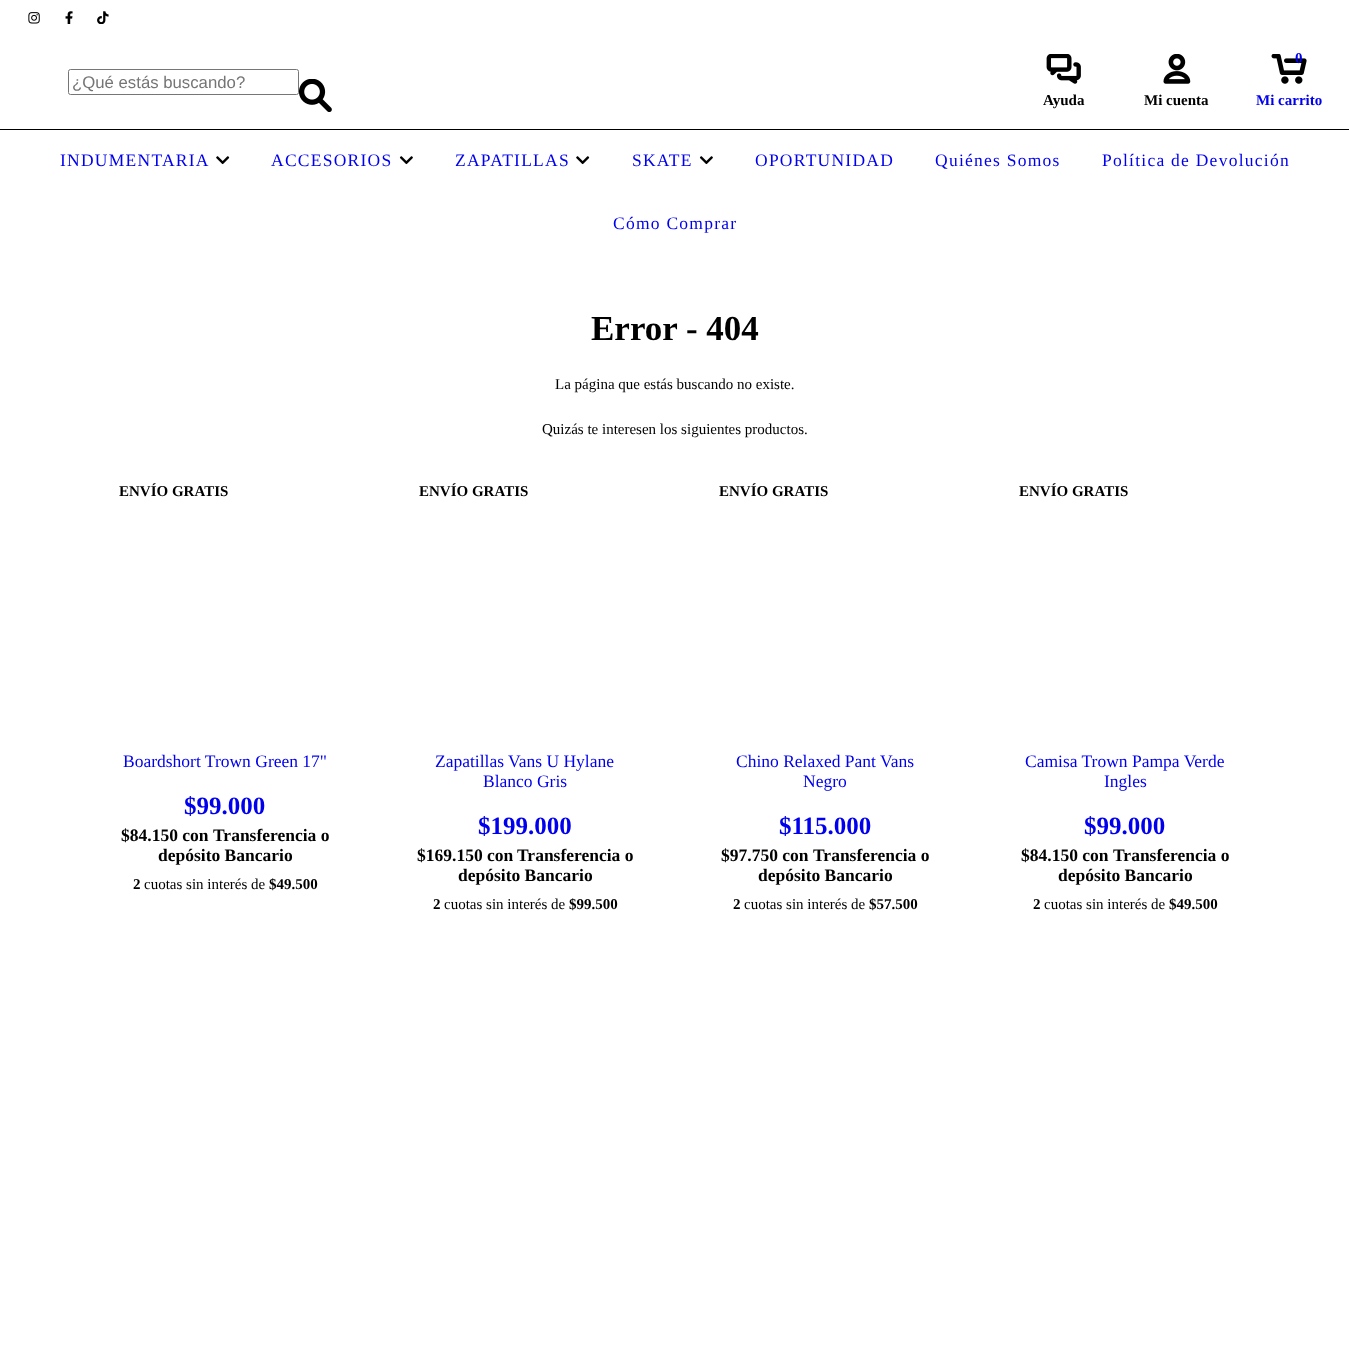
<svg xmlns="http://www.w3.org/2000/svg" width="1349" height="1363">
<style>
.a{font:16.75px Liberation Sans;fill:#757575}
.b{font:bold 15px Liberation Serif;fill:#000}
.c{font:bold 15px Liberation Serif;fill:#00e}
.d{font:17.5px Liberation Serif;letter-spacing:1.25px;fill:#00e}
.e{font:bold 35px Liberation Serif;fill:#000}
.f{font:15px Liberation Serif;fill:#000}
.g{font:17.5px Liberation Serif;fill:#00e}
.h{font:bold 25px Liberation Serif;fill:#00e}
.i{font:bold 17.5px Liberation Serif;fill:#000}
</style>
<rect width="100%" height="100%" fill="#fff"/>
<image href="1.png" x="28" y="12" width="12" height="12"/>
<image href="2.png" x="65" y="11" width="8" height="13"/>
<image href="3.png" x="97" y="11" width="12" height="13"/>
<rect fill="none" stroke="#767676" x="68.5" y="69.5" width="230" height="25" rx="2"/>
<image href="4.png" x="299" y="79" width="33" height="33"/>
<image href="5.png" x="1046" y="54" width="35" height="30"/>
<image href="6.png" x="1163" y="54" width="28" height="30"/>
<image href="7.png" x="1271" y="54" width="36" height="30"/>
<path fill="#000" d="M0 129h1349v1H0z"/>
<image href="8.png" x="216" y="156" width="14" height="9"/>
<image href="9.png" x="399" y="156" width="14" height="9"/>
<image href="8.png" x="576" y="156" width="14" height="9"/>
<image href="9.png" x="699" y="156" width="14" height="9"/>
<text class="a" x="72" y="88">¿Qué estás buscando?</text>
<text class="b" x="1043" y="105">Ayuda</text>
<text class="b" x="1144" y="105">Mi cuenta</text>
<text class="c" x="1295" y="63">0</text>
<text class="c" x="1256" y="105">Mi carrito</text>
<text class="d" x="60" y="166">INDUMENTARIA</text>
<text class="d" x="271" y="166">ACCESORIOS</text>
<text class="d" x="455" y="166">ZAPATILLAS</text>
<text class="d" x="632" y="166">SKATE</text>
<text class="d" x="755" y="166">OPORTUNIDAD</text>
<text class="d" x="935" y="166">Quiénes Somos</text>
<text class="d" x="1102" y="166">Política de Devolución</text>
<text class="d" x="613" y="229">Cómo Comprar</text>
<text class="e" x="591" y="340">Error - 404</text>
<text class="f" x="555" y="389">La página que estás buscando no existe.</text>
<text class="f" x="542" y="434">Quizás te interesen los siguientes productos.</text>
<text class="b" x="119" y="496">ENVÍO GRATIS</text>
<text class="g" x="123" y="767">Boardshort Trown Green 17"</text>
<text class="h" x="184" y="814">$99.000</text>
<text class="i" x="121" y="841">$84.150 con</text>
<text class="i" x="213" y="841">Transferencia o</text>
<text class="i" x="158" y="861">depósito Bancario</text>
<text class="b" x="133" y="889">2</text>
<text class="f" x="144" y="889">cuotas sin interés de</text>
<text class="b" x="269" y="889">$49.500</text>
<text class="b" x="419" y="496">ENVÍO GRATIS</text>
<text class="g" x="435" y="767">Zapatillas Vans U Hylane</text>
<text class="g" x="483" y="787">Blanco Gris</text>
<text class="h" x="478" y="834">$199.000</text>
<text class="i" x="417" y="861">$169.150 con</text>
<text class="i" x="517" y="861">Transferencia o</text>
<text class="i" x="458" y="881">depósito Bancario</text>
<text class="b" x="433" y="909">2</text>
<text class="f" x="444" y="909">cuotas sin interés de</text>
<text class="b" x="569" y="909">$99.500</text>
<text class="b" x="719" y="496">ENVÍO GRATIS</text>
<text class="g" x="736" y="767">Chino Relaxed Pant Vans</text>
<text class="g" x="803" y="787">Negro</text>
<text class="h" x="779" y="834">$115.000</text>
<text class="i" x="721" y="861">$97.750 con</text>
<text class="i" x="813" y="861">Transferencia o</text>
<text class="i" x="758" y="881">depósito Bancario</text>
<text class="b" x="733" y="909">2</text>
<text class="f" x="744" y="909">cuotas sin interés de</text>
<text class="b" x="869" y="909">$57.500</text>
<text class="b" x="1019" y="496">ENVÍO GRATIS</text>
<text class="g" x="1025" y="767">Camisa Trown Pampa Verde</text>
<text class="g" x="1104" y="787">Ingles</text>
<text class="h" x="1084" y="834">$99.000</text>
<text class="i" x="1021" y="861">$84.150 con</text>
<text class="i" x="1113" y="861">Transferencia o</text>
<text class="i" x="1058" y="881">depósito Bancario</text>
<text class="b" x="1033" y="909">2</text>
<text class="f" x="1044" y="909">cuotas sin interés de</text>
<text class="b" x="1169" y="909">$49.500</text>
</svg>
